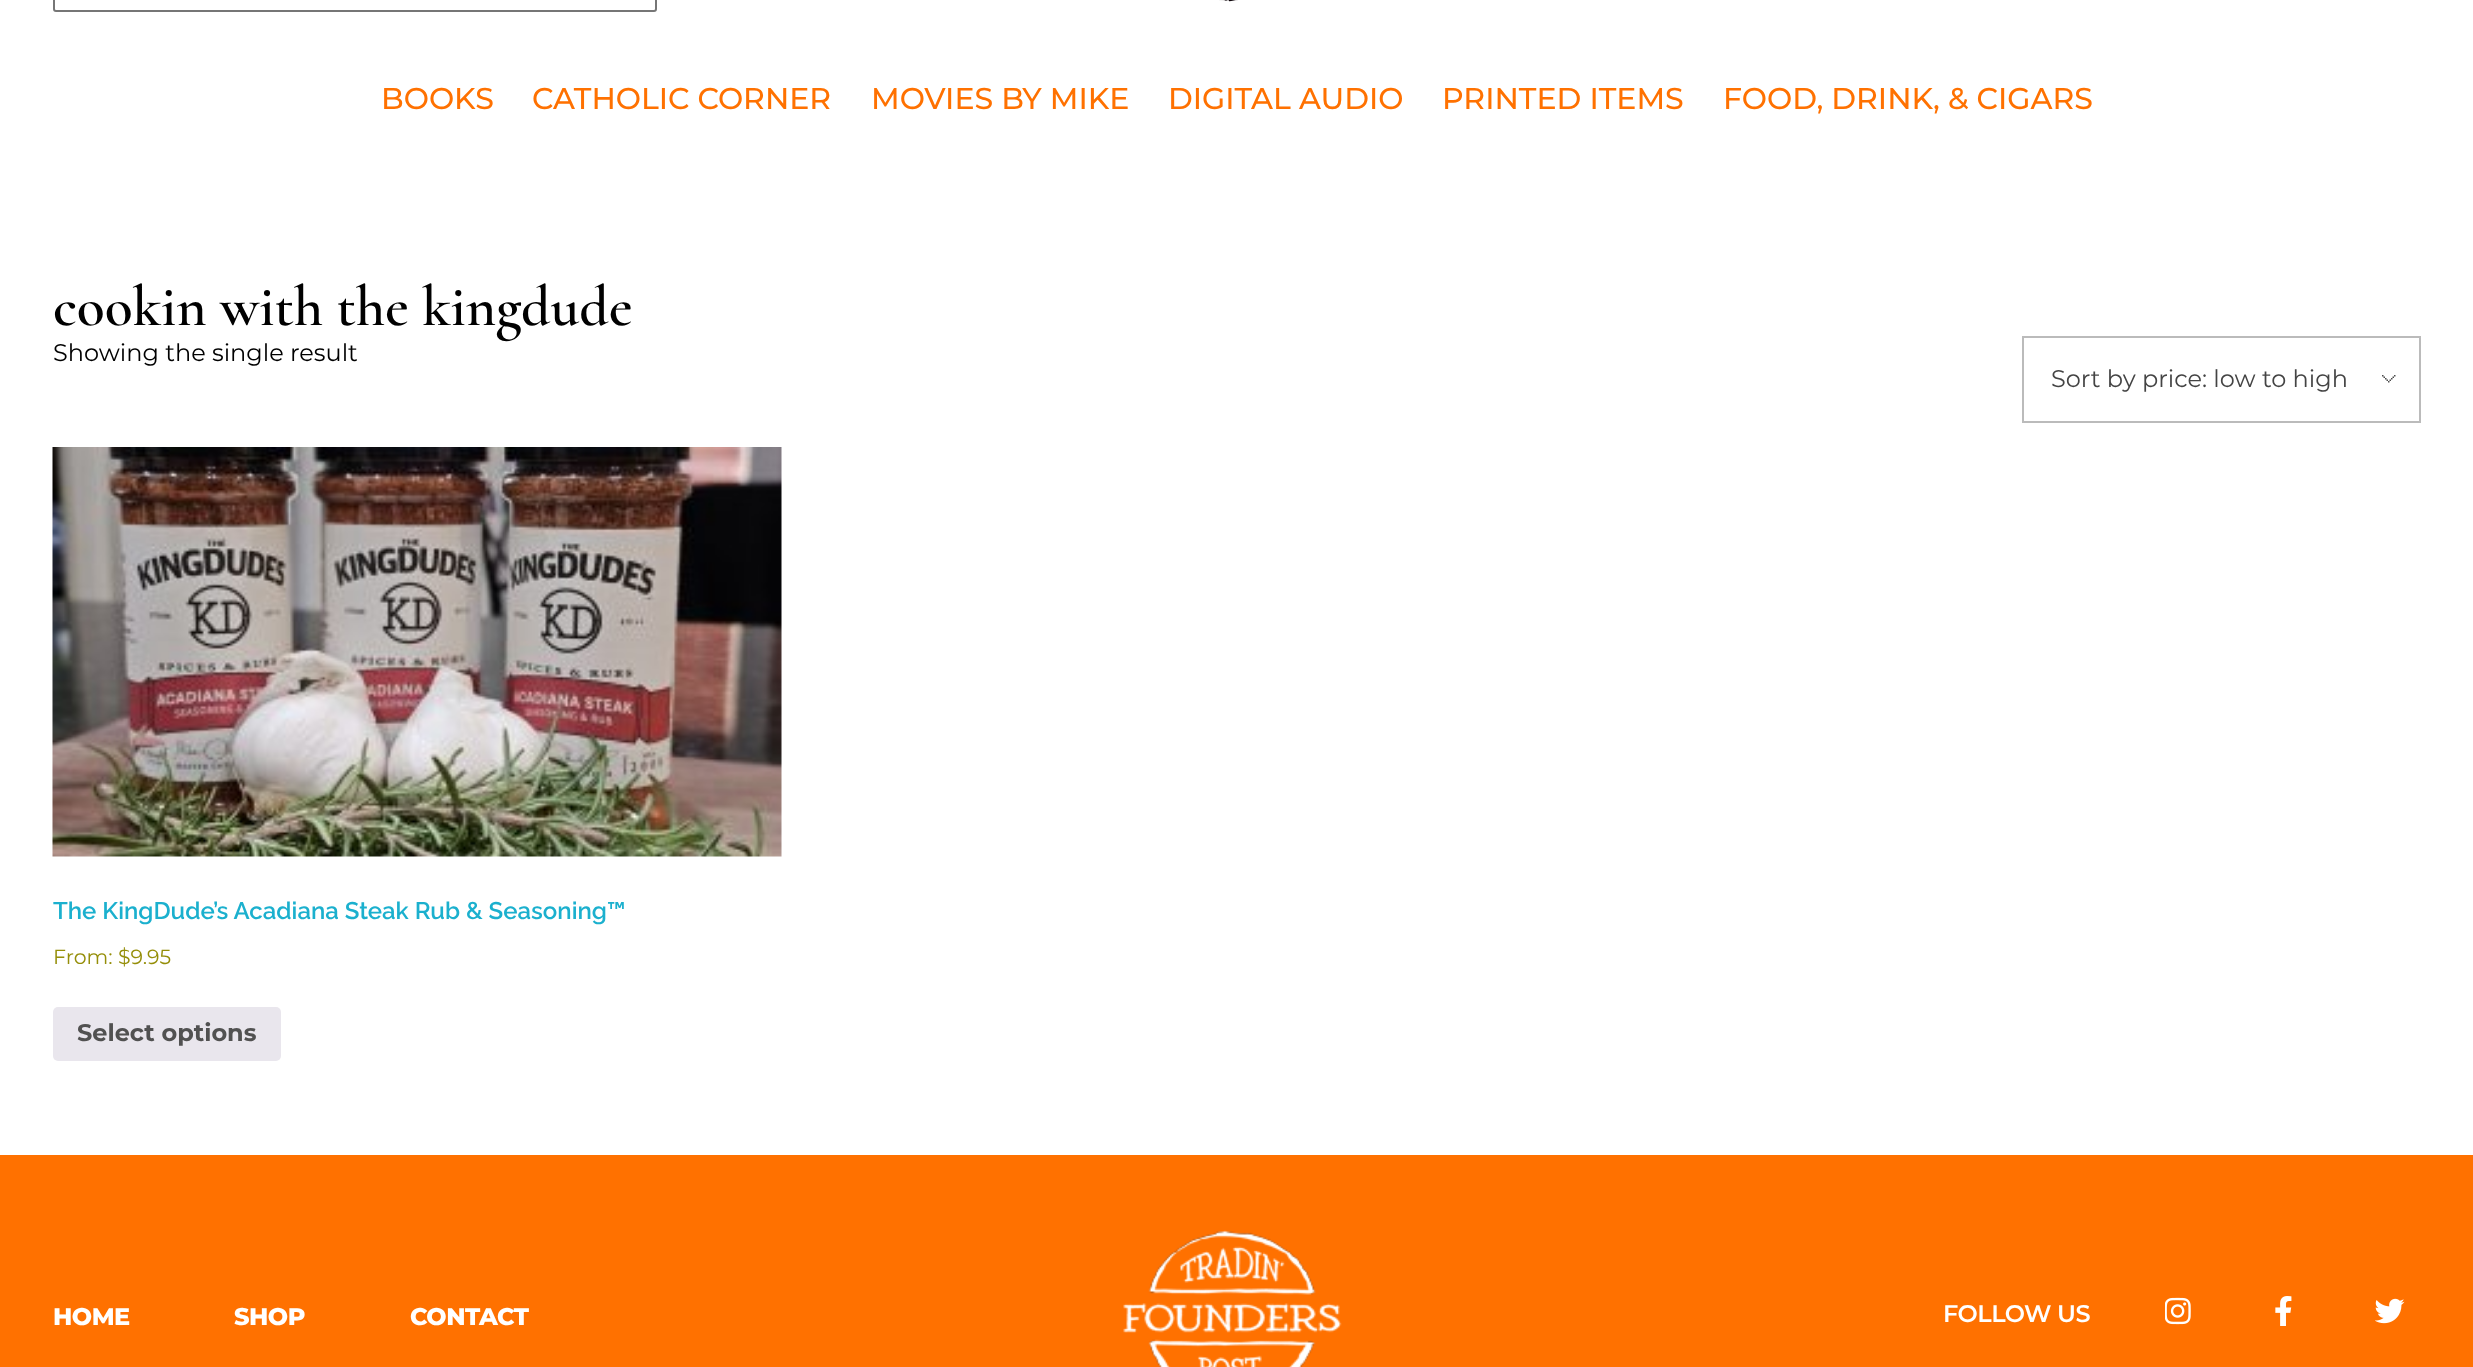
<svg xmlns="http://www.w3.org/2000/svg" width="2473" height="1367">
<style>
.a{font:500 30px Montserrat;fill:#ff7100}
.b{font:600 57.6px Cormorant;fill:#000}
.c{font:24px Montserrat;fill:#000}
.d{font:24px Montserrat;fill:#444}
.e{font:600 24px Raleway;fill:#1bb0ce}
.f{font:20.5px Montserrat;fill:#958e09}
.g{font:bold 24px Montserrat;fill:#515151}
.h{font:800 24px Montserrat;letter-spacing:-0.5px;fill:#fff}
.i{font:600 24px Montserrat;letter-spacing:-0.5px;fill:#fff}
</style>
<rect width="100%" height="100%" fill="#fff"/>
<rect fill="none" stroke="#767676" stroke-width="2" x="54" y="-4" width="602" height="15" rx="2"/>
<image href="1.png" x="1219" y="0" width="19" height="2"/>
<image href="2.png" x="2382" y="375" width="14" height="8"/>
<path fill="none" stroke="#bbb" stroke-width="2" d="M2023 337h397v85H2023z"/>
<image href="3.png" x="52" y="447" width="730" height="410"/>
<rect fill="#e9e6ed" x="53" y="1007" width="228" height="54" rx="5"/>
<path fill="#ff7100" d="M0 1155h2473v212H0z"/>
<image href="4.png" x="1123" y="1230" width="219" height="137"/>
<image href="5.png" x="2165" y="1297" width="26" height="28"/>
<image href="6.png" x="2275" y="1296" width="17" height="30"/>
<image href="7.png" x="2375" y="1298" width="30" height="26"/>
<text class="a" x="381" y="109">BOOKS</text>
<text class="a" x="532" y="109">CATHOLIC CORNER</text>
<text class="a" x="871" y="109">MOVIES BY MIKE</text>
<text class="a" x="1168" y="109">DIGITAL AUDIO</text>
<text class="a" x="1442" y="109">PRINTED ITEMS</text>
<text class="a" x="1723" y="109">FOOD, DRINK, &amp; CIGARS</text>
<text class="b" x="53" y="325">cookin with the kingdude</text>
<text class="c" x="53" y="361">Showing the single result</text>
<text class="d" x="2051" y="387">Sort by price: low to high</text>
<text class="e" x="53" y="919">The KingDude’s Acadiana Steak Rub &amp; Seasoning™</text>
<text class="f" x="53" y="964">From: $9.95</text>
<text class="g" x="77" y="1041">Select options</text>
<text class="h" x="53" y="1325">HOME</text>
<text class="h" x="234" y="1325">SHOP</text>
<text class="h" x="410" y="1325">CONTACT</text>
<text class="i" x="1943" y="1322">FOLLOW US</text>
</svg>
